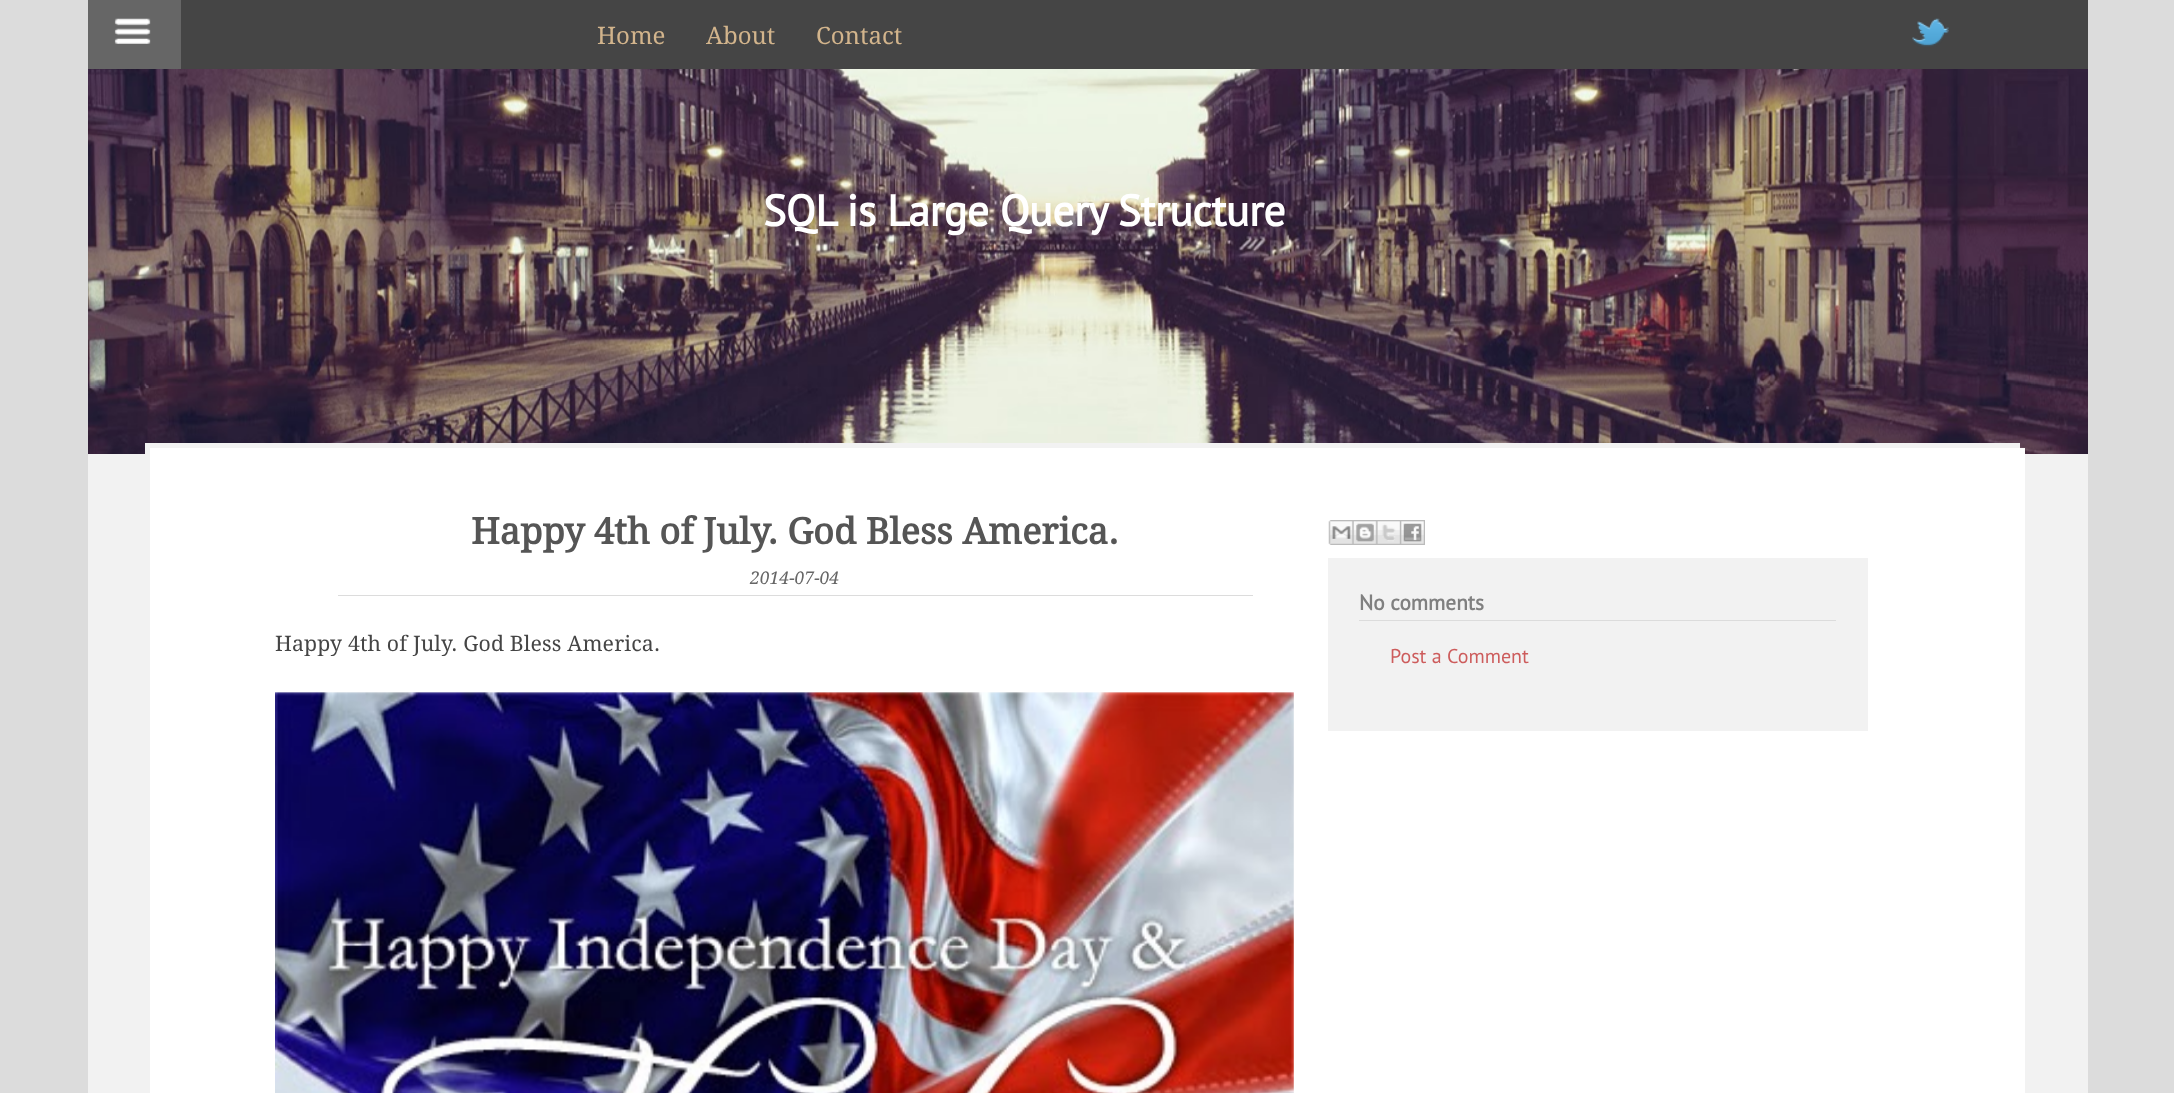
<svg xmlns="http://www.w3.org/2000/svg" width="2174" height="1093">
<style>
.a{font:24px Droid Serif;fill:#d2b48c}
.b{font:bold 43.75px PT Sans;letter-spacing:-0.5px;fill:#fff}
.c{font:bold 36.25px Droid Serif;fill:#555}
.d{font:italic 17.5px Droid Serif;fill:#666}
.e{font:21.25px Droid Serif;letter-spacing:0.15px;fill:#454545}
.f{font:bold 21.25px PT Sans;fill:#808080}
.g{font:20px PT Sans;fill:#cd5c5c}
</style>
<rect width="100%" height="100%" fill="#dcdcdc"/>
<path fill="#454545" d="M181 0h1907v69H181z"/>
<path fill="#666" d="M88 0h93v69H88z"/>
<image href="1.png" x="114" y="18" width="37" height="26"/>
<image href="2.png" x="1912" y="18" width="37" height="29"/>
<image href="3.png" x="88" y="69" width="2000" height="385"/>
<path fill="#f2f2f2" d="M88 454h2000v639H88z"/>
<path fill="#f2f2f2" filter="blur(0.5px)" d="M145 443h1875v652H145z"/>
<path fill="#fff" d="M150 448h1875v645H150z"/>
<path fill="#dcdcdc" d="M338 595h915v1H338z"/>
<image href="4.png" x="275" y="692" width="1019" height="401"/>
<image href="5.png" x="1328" y="520" width="25" height="25"/>
<image href="6.png" x="1352" y="520" width="25" height="25"/>
<image href="7.png" x="1375" y="520" width="25" height="25"/>
<image href="8.png" x="1400" y="520" width="25" height="25"/>
<path fill="#f2f2f2" d="M1328 558h540v173H1328z"/>
<path fill="#dcdcdc" d="M1359 620h477v1H1359z"/>
<text class="a" x="597" y="44">Home</text>
<text class="a" x="706" y="44">About</text>
<text class="a" x="816" y="44">Contact</text>
<text class="b" x="763" y="226">SQL is Large Query Structure</text>
<text class="c" x="471" y="544">Happy 4th of July. God Bless America.</text>
<text class="d" x="750" y="584">2014-07-04</text>
<text class="e" x="275" y="651">Happy 4th of July. God Bless America.</text>
<text class="f" x="1359" y="610">No comments</text>
<text class="g" x="1390" y="663">Post a Comment</text>
</svg>
